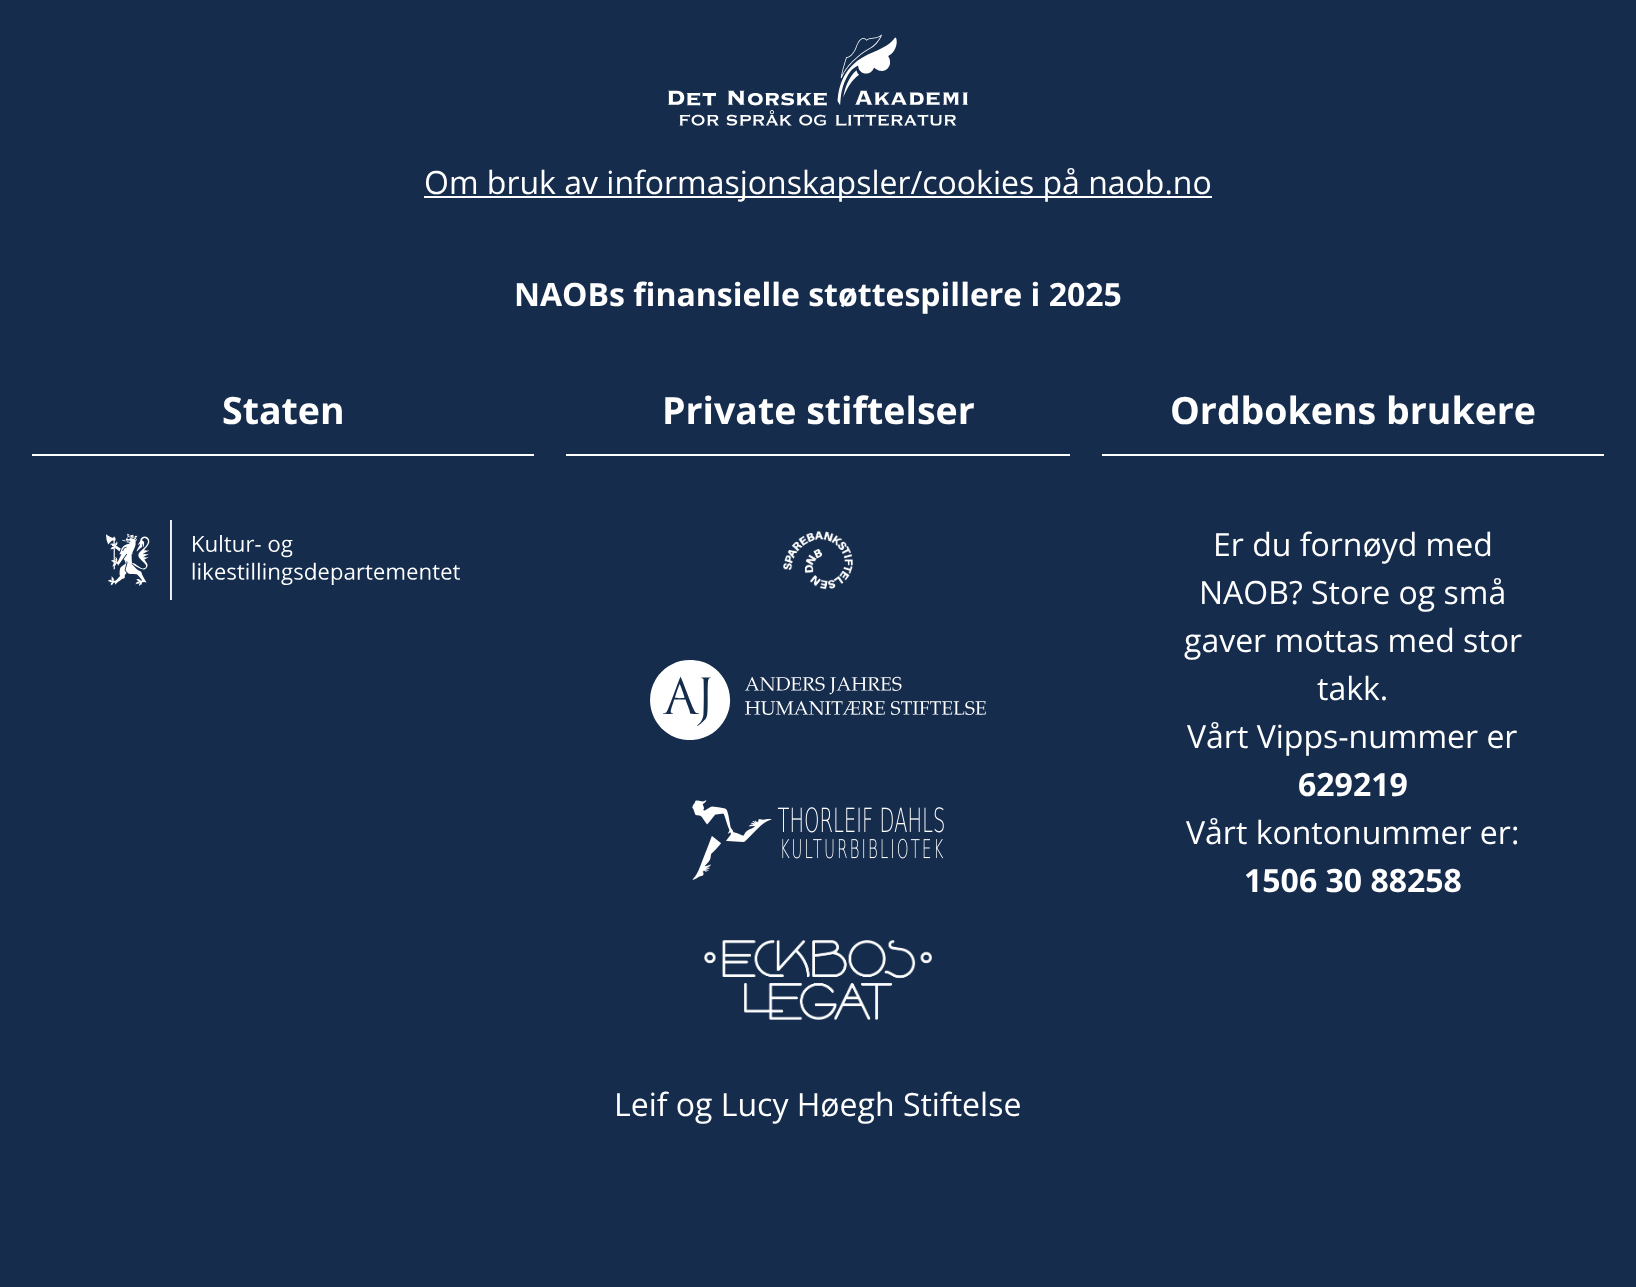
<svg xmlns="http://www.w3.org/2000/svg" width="1636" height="1287">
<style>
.a{font:32px Open Sans;fill:#fff}
.b{font:bold 32px Open Sans;fill:#fff}
.c{font:bold 37.5px Open Sans;fill:#fff}
</style>
<rect width="100%" height="100%" fill="#152c4c"/>
<image href="1.png" x="668" y="34" width="300" height="92"/>
<path fill="#fff" d="M424 196h788v2H424z"/>
<path fill="#fff" d="M32 454h502v2H32z"/>
<image href="2.png" x="106" y="520" width="354" height="80"/>
<path fill="#fff" d="M566 454h504v2H566z"/>
<image href="3.png" x="783" y="531" width="70" height="59"/>
<image href="4.png" x="650" y="660" width="336" height="80"/>
<image href="5.png" x="692" y="800" width="252" height="80"/>
<image href="6.png" x="704" y="940" width="228" height="80"/>
<path fill="#fff" d="M1102 454h502v2H1102z"/>
<text class="a" x="424" y="194">Om bruk av informasjonskapsler/cookies på naob.no</text>
<text class="b" x="514" y="306">NAOBs finansielle støttespillere i 2025</text>
<text class="c" x="222" y="424">Staten</text>
<text class="c" x="662" y="424">Private stiftelser</text>
<text class="a" x="614" y="1116">Leif og Lucy Høegh Stiftelse</text>
<text class="c" x="1170" y="424">Ordbokens brukere</text>
<text class="a" x="1213" y="556">Er du fornøyd med</text>
<text class="a" x="1199" y="604">NAOB? Store og små</text>
<text class="a" x="1184" y="652">gaver mottas med stor</text>
<text class="a" x="1317" y="700">takk.</text>
<text class="a" x="1187" y="748">Vårt Vipps-nummer er</text>
<text class="b" x="1298" y="796">629219</text>
<text class="a" x="1186" y="844">Vårt kontonummer er:</text>
<text class="b" x="1244" y="892">1506 30 88258</text>
</svg>
